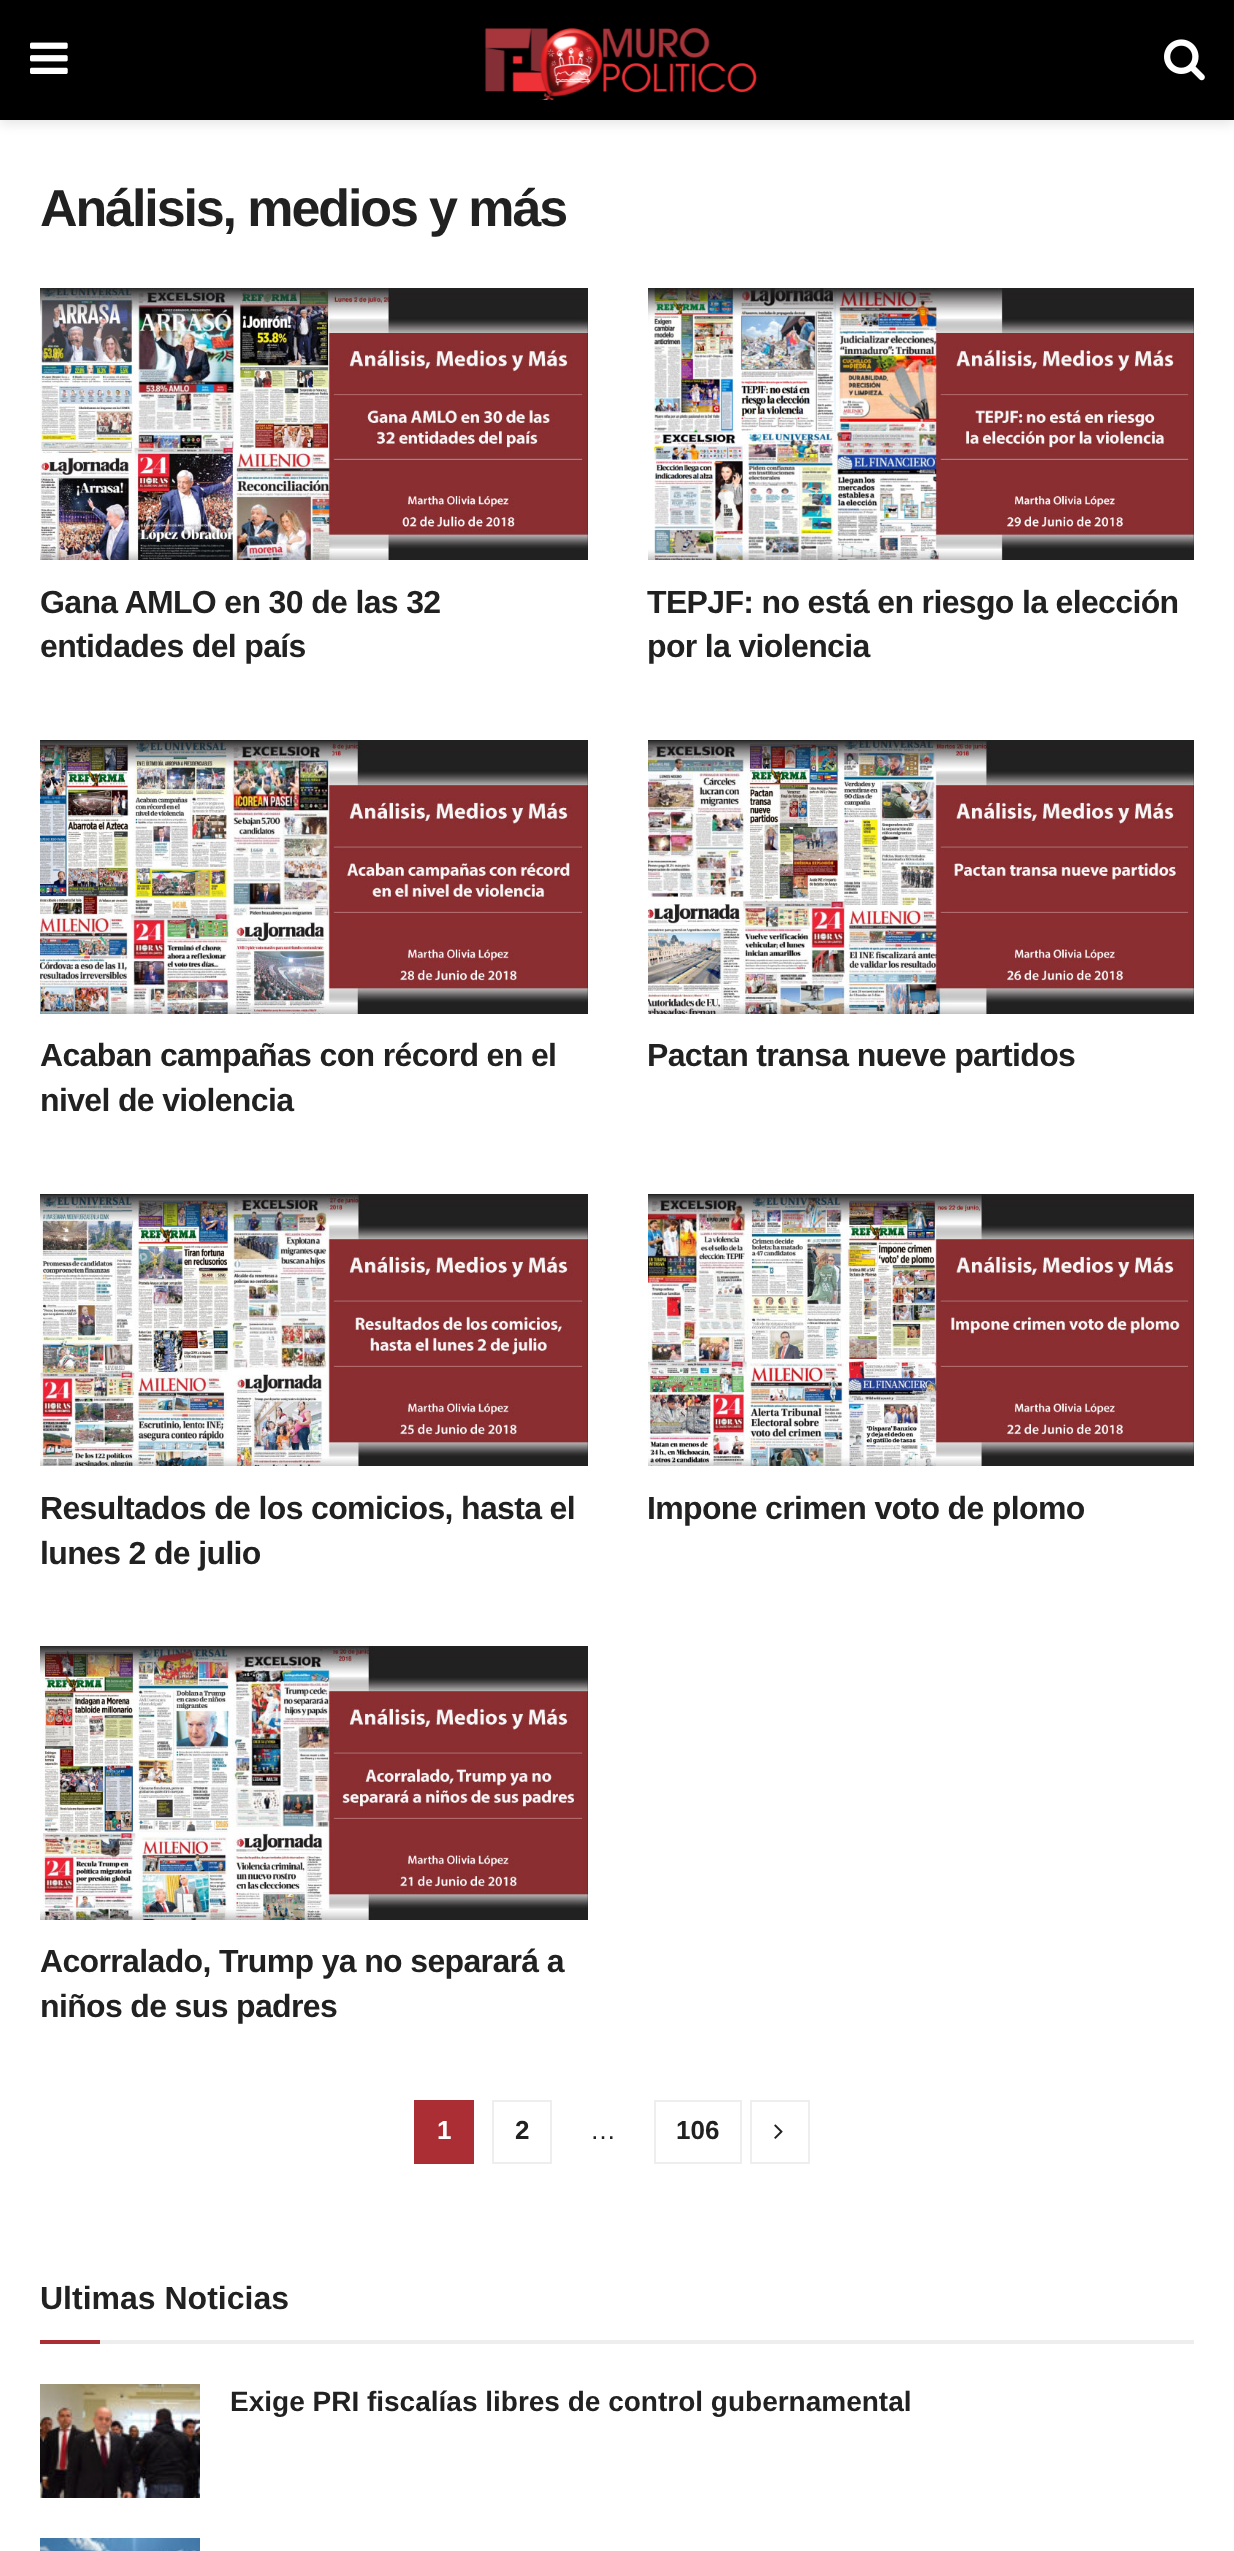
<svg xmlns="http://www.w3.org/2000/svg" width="1234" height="2551">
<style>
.a{font:bold 52px Liberation Sans;letter-spacing:-2.1px;fill:#212121}
.b{font:bold 32px Liberation Sans;letter-spacing:-0.65px;fill:#212121}
.c{font:bold 26px Liberation Sans;fill:#fff}
.d{font:bold 26px Liberation Sans;fill:#212121}
.e{font:26px Liberation Sans;fill:#212121}
.f{font:bold 32px Liberation Sans;fill:#212121}
.g{font:bold 28px Liberation Sans;fill:#212121}
</style>
<rect width="100%" height="100%" fill="#fff"/>
<path fill="#0000001a" filter="blur(6px)" d="M0 4h1234v120H0z"/>
<path fill="#000" d="M0 0h1234v120H0z"/>
<image href="1.png" x="30" y="42" width="38" height="32"/>
<image href="2.png" x="484" y="27" width="273" height="73"/>
<image href="3.png" x="1164" y="39" width="41" height="42"/>
<image href="4.png" x="40" y="288" width="548" height="272"/>
<image href="5.png" x="648" y="288" width="546" height="272"/>
<image href="6.png" x="40" y="740" width="548" height="274"/>
<image href="7.png" x="648" y="740" width="546" height="274"/>
<image href="8.png" x="40" y="1194" width="548" height="272"/>
<image href="9.png" x="648" y="1194" width="546" height="272"/>
<image href="10.png" x="40" y="1646" width="548" height="274"/>
<path fill="#ab2e34" d="M414 2100h60v64H414z"/>
<path fill="none" stroke="#eee" stroke-width="2" d="M493 2101h58v62H493z"/>
<path fill="none" stroke="#eee" stroke-width="2" d="M655 2101h86v62H655z"/>
<path fill="none" stroke="#eee" stroke-width="2" d="M751 2101h58v62H751z"/>
<image href="11.png" x="774" y="2124" width="9" height="15"/>
<path fill="#eee" d="M100 2340h1094v4H100z"/>
<path fill="#ab2e34" d="M40 2340h60v4H40z"/>
<image href="12.png" x="40" y="2384" width="160" height="114"/>
<image href="13.png" x="40" y="2538" width="160" height="13"/>
<text class="a" x="40" y="226">Análisis, medios y más</text>
<text class="b" x="40" y="613">Gana AMLO en 30 de las 32</text>
<text class="b" x="40" y="657">entidades del país</text>
<text class="b" x="647" y="613">TEPJF: no está en riesgo la elección</text>
<text class="b" x="647" y="657">por la violencia</text>
<text class="b" x="40" y="1066">Acaban campañas con récord en el</text>
<text class="b" x="40" y="1111">nivel de violencia</text>
<text class="b" x="647" y="1066">Pactan transa nueve partidos</text>
<text class="b" x="40" y="1519">Resultados de los comicios, hasta el</text>
<text class="b" x="40" y="1564">lunes 2 de julio</text>
<text class="b" x="647" y="1519">Impone crimen voto de plomo</text>
<text class="b" x="40" y="1972">Acorralado, Trump ya no separará a</text>
<text class="b" x="40" y="2017">niños de sus padres</text>
<text class="c" x="437" y="2139">1</text>
<text class="d" x="515" y="2139">2</text>
<text class="e" x="590" y="2139">…</text>
<text class="d" x="676" y="2139">106</text>
<text class="f" x="40" y="2309">Ultimas Noticias</text>
<text class="g" x="230" y="2411">Exige PRI fiscalías libres de control gubernamental</text>
</svg>
